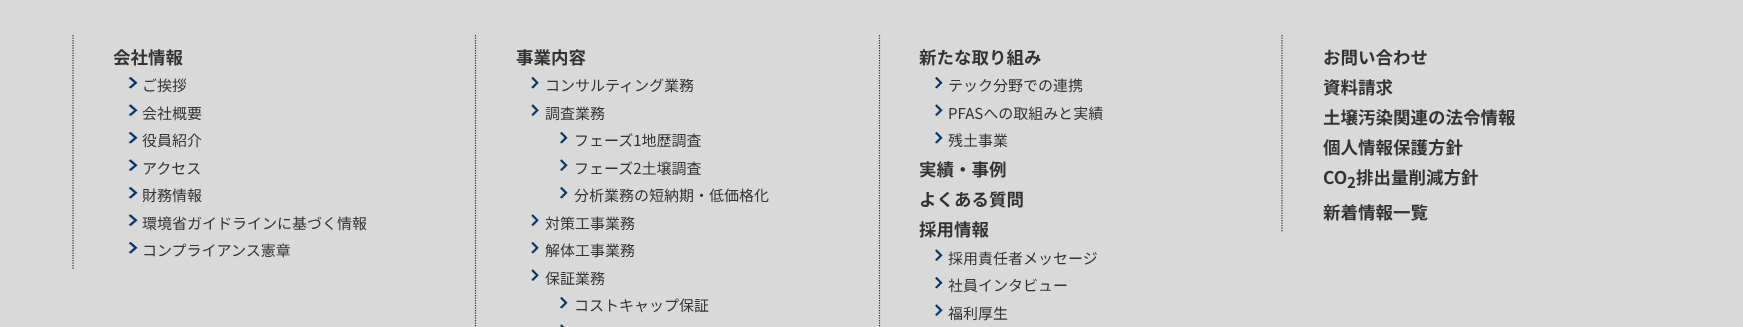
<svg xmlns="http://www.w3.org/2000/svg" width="1743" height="327">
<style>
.a{font:bold 17.5px Noto Sans JP;fill:#333}
.b{font:15px Noto Sans JP;fill:#333}
.c{font:bold 15px Noto Sans JP;fill:#333}
</style>
<rect width="100%" height="100%" fill="#d9d9d9"/>
<path fill="none" stroke="#333" stroke-width="1.2" stroke-dasharray="1.25 1.25" d="M73 35v235"/>
<image href="1.png" x="128" y="77" width="10" height="12"/>
<image href="2.png" x="128" y="104" width="10" height="12"/>
<image href="1.png" x="128" y="132" width="10" height="12"/>
<image href="2.png" x="128" y="159" width="10" height="12"/>
<image href="1.png" x="128" y="187" width="10" height="12"/>
<image href="2.png" x="128" y="214" width="10" height="12"/>
<image href="1.png" x="128" y="242" width="10" height="12"/>
<path fill="none" stroke="#333" stroke-width="1.2" stroke-dasharray="1.25 1.25" d="M475.5 35v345"/>
<image href="3.png" x="531" y="77" width="8" height="12"/>
<image href="4.png" x="531" y="104" width="8" height="12"/>
<image href="5.png" x="560" y="132" width="8" height="12"/>
<image href="6.png" x="560" y="159" width="8" height="12"/>
<image href="5.png" x="560" y="187" width="8" height="12"/>
<image href="4.png" x="531" y="214" width="8" height="12"/>
<image href="3.png" x="531" y="242" width="8" height="12"/>
<image href="4.png" x="531" y="269" width="8" height="12"/>
<image href="5.png" x="560" y="297" width="8" height="12"/>
<image href="7.png" x="560" y="324" width="5" height="3"/>
<path fill="none" stroke="#333" stroke-width="1.2" stroke-dasharray="1.25 1.25" d="M879.5 35v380"/>
<image href="5.png" x="935" y="77" width="8" height="12"/>
<image href="6.png" x="935" y="104" width="8" height="12"/>
<image href="5.png" x="935" y="132" width="8" height="12"/>
<image href="6.png" x="935" y="249" width="8" height="12"/>
<image href="5.png" x="935" y="277" width="8" height="12"/>
<image href="6.png" x="935" y="304" width="8" height="12"/>
<path fill="none" stroke="#333" stroke-width="1.2" stroke-dasharray="1.25 1.25" d="M1282 35v197.5"/>
<text class="a" x="113" y="64">会社情報</text>
<text class="b" x="142" y="91">ご挨拶</text>
<text class="b" x="142" y="119">会社概要</text>
<text class="b" x="142" y="146">役員紹介</text>
<text class="b" x="142" y="174">アクセス</text>
<text class="b" x="142" y="201">財務情報</text>
<text class="b" x="142" y="229">環境省ガイドラインに基づく情報</text>
<text class="b" x="142" y="256">コンプライアンス憲章</text>
<text class="a" x="516" y="64">事業内容</text>
<text class="b" x="545" y="91">コンサルティング業務</text>
<text class="b" x="545" y="119">調査業務</text>
<text class="b" x="574" y="146">フェーズ1地歴調査</text>
<text class="b" x="574" y="174">フェーズ2土壌調査</text>
<text class="b" x="574" y="201">分析業務の短納期・低価格化</text>
<text class="b" x="545" y="229">対策工事業務</text>
<text class="b" x="545" y="256">解体工事業務</text>
<text class="b" x="545" y="284">保証業務</text>
<text class="b" x="574" y="311">コストキャップ保証</text>
<text class="a" x="919" y="64">新たな取り組み</text>
<text class="b" x="948" y="91">テック分野での連携</text>
<text class="b" x="948" y="119">PFASへの取組みと実績</text>
<text class="b" x="948" y="146">残土事業</text>
<text class="a" x="919" y="176">実績・事例</text>
<text class="a" x="919" y="206">よくある質問</text>
<text class="a" x="919" y="236">採用情報</text>
<text class="b" x="948" y="264">採用責任者メッセージ</text>
<text class="b" x="948" y="291">社員インタビュー</text>
<text class="b" x="948" y="319">福利厚生</text>
<text class="a" x="1323" y="64">お問い合わせ</text>
<text class="a" x="1323" y="94">資料請求</text>
<text class="a" x="1323" y="124">土壌汚染関連の法令情報</text>
<text class="a" x="1323" y="154">個人情報保護方針</text>
<text class="a" x="1323" y="184">CO</text>
<text class="c" x="1347" y="188">2</text>
<text class="a" x="1356" y="184">排出量削減方針</text>
<text class="a" x="1323" y="219">新着情報一覧</text>
</svg>
